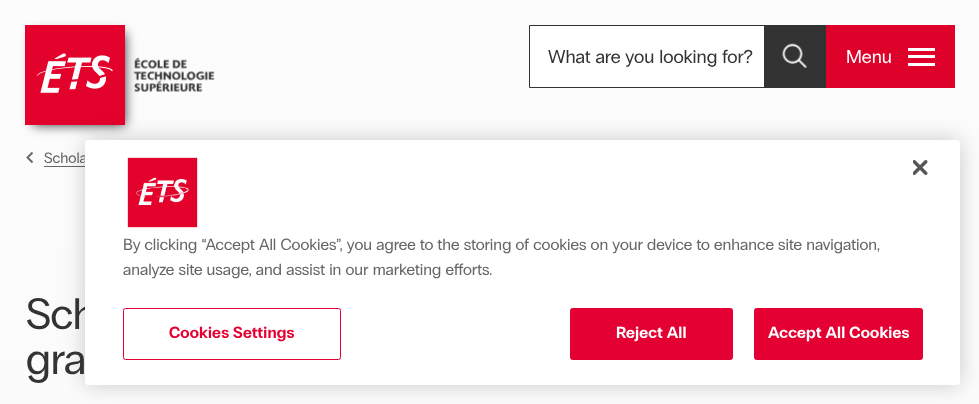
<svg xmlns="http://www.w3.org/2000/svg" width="979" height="404">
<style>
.a{font:18.75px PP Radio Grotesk;fill:#333}
.b{font:18.75px PP Radio Grotesk;fill:#fff}
.c{font:15px PP Radio Grotesk;fill:#666}
.d{font:44px PP Radio Grotesk;letter-spacing:-0.5px;fill:#333}
.e{font:16.25px PP Radio Grotesk;fill:#666}
.f{font:bold 16.25px PP Radio Grotesk;letter-spacing:0.2px;fill:#e40032}
.g{font:bold 16.25px PP Radio Grotesk;letter-spacing:0.2px;fill:#fff}
</style>
<defs>
<linearGradient id="g1" gradientUnits="userSpaceOnUse" x1="490" y1="0" x2="490" y2="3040"><stop offset="0" stop-color="#fcfcfc"/><stop offset="1" stop-color="#f5f5f5"/></linearGradient>
</defs>
<rect width="100%" height="100%" fill="#fff"/>
<path fill="url(#g1)" d="M0 0h979v404H0z"/>
<image href="1.png" x="133" y="57" width="82" height="35"/>
<path fill="#333" filter="blur(6px)" d="M33 33h92v92H33z"/>
<image href="2.png" x="25" y="25" width="100" height="100"/>
<path fill="#fff" d="M530 26h234v61H530z"/>
<path fill="none" stroke="#333" d="M529.5 25.5h301v62H529.5z"/>
<path fill="#333" d="M764 26h62v61H764z"/>
<image href="3.png" x="782" y="43" width="25" height="26"/>
<path fill="#de022b" d="M826 25h129v63H826z"/>
<path fill="#fff" d="M908 48h27v3H908z"/>
<path fill="#fff" d="M908 55h27v3H908z"/>
<path fill="#fff" d="M908 63h27v3H908z"/>
<path fill="none" stroke="#666" stroke-width="1.9" d="M32.5 162.5l-5-5l5-5"/>
<path fill="#666" d="M44 166h41v1H44z"/>
<rect fill="#00000033" filter="blur(11px)" x="85" y="140" width="875" height="245" rx="3"/>
<text class="a" x="548" y="63">What are you looking for?</text>
<text class="b" x="846" y="63">Menu</text>
<text class="c" x="44" y="163">Schola</text>
<text class="d" x="26" y="329">Sch</text>
<text class="d" x="26" y="374">gra</text>
<rect fill="#fff" x="85" y="140" width="875" height="245" rx="3"/>
<image href="4.png" x="913" y="160" width="15" height="15"/>
<image href="5.png" x="127" y="157" width="71" height="71"/>
<text class="e" x="123" y="250">By clicking “Accept All Cookies”, you agree to the storing of cookies on your device to enhance site navigation,</text>
<text class="e" x="123" y="275">analyze site usage, and assist in our marketing efforts.</text>
<rect fill="none" stroke="#e40032" x="123.5" y="308.5" width="217" height="51" rx="2"/>
<text class="f" x="169" y="338">Cookies Settings</text>
<rect fill="#e40032" stroke="#e40032" x="570.5" y="308.5" width="162" height="51" rx="2"/>
<text class="g" x="616" y="338">Reject All</text>
<rect fill="#e40032" stroke="#e40032" x="754.5" y="308.5" width="168" height="51" rx="2"/>
<text class="g" x="768" y="338">Accept All Cookies</text>
</svg>
